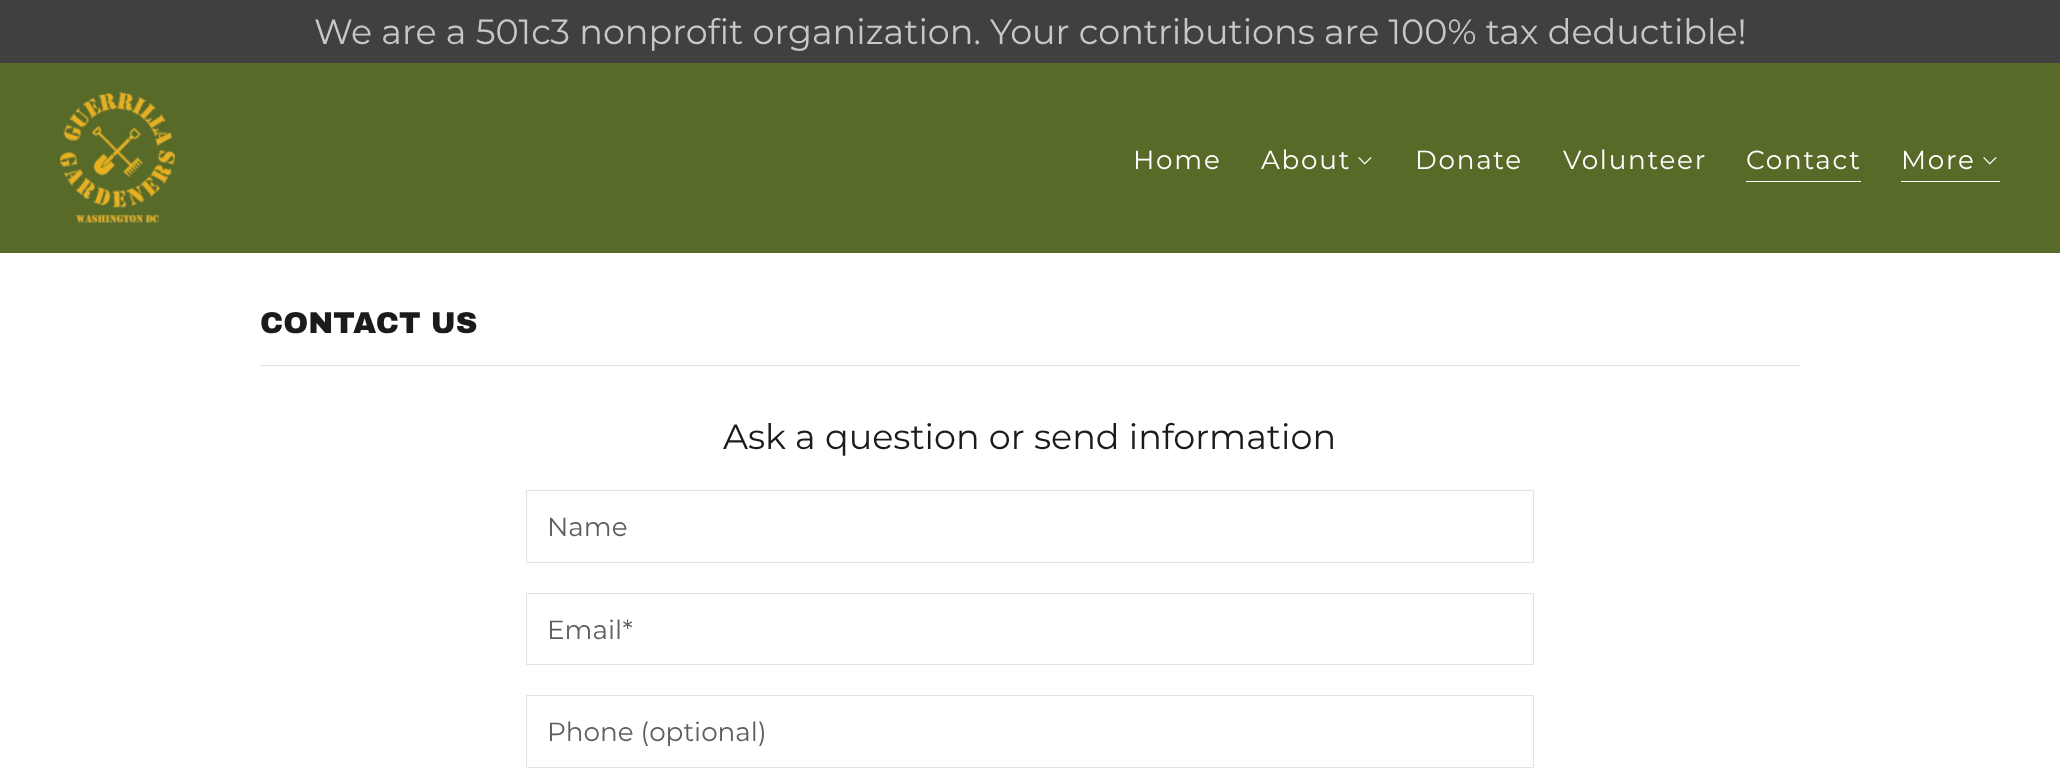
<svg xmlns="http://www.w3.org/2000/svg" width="2060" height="784">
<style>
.a{font:35px Montserrat;fill:#c7c7c7}
.b{font:26.25px Montserrat;letter-spacing:1.75px;fill:#fff}
.c{font:900 30px Archivo Black;fill:#1b1b1b}
.d{font:35px Montserrat;fill:#1b1b1b}
.e{font:26.25px Montserrat;fill:#5e5e5e}
</style>
<rect width="100%" height="100%" fill="#586a28"/>
<path fill="#404040" d="M0 0h2060v63H0z"/>
<image href="1.png" x="60" y="92" width="115" height="131"/>
<image href="2.png" x="1358" y="157" width="14" height="8"/>
<path fill="#fff" d="M1746 181h115v1H1746z"/>
<path fill="#fff" d="M1901 181h99v1H1901z"/>
<image href="2.png" x="1983" y="157" width="14" height="8"/>
<path fill="#fff" d="M0 253h2060v531H0z"/>
<path fill="#e2e2e2" d="M260 365h1540v1H260z"/>
<path fill="none" stroke="#e2e2e2" d="M526.5 490.5h1007v72H526.5z"/>
<path fill="none" stroke="#e2e2e2" d="M526.5 593.5h1007v71H526.5z"/>
<path fill="none" stroke="#e2e2e2" d="M526.5 695.5h1007v72H526.5z"/>
<text class="a" x="314" y="44">We are a 501c3 nonprofit organization. Your contributions are 100% tax deductible!</text>
<text class="b" x="1133" y="169">Home</text>
<text class="b" x="1261" y="169">About</text>
<text class="b" x="1415" y="169">Donate</text>
<text class="b" x="1563" y="169">Volunteer</text>
<text class="b" x="1746" y="169">Contact</text>
<text class="b" x="1901" y="169">More</text>
<text class="c" x="260" y="333">CONTACT US</text>
<text class="d" x="723" y="449">Ask a question or send information</text>
<text class="e" x="547" y="536">Name</text>
<text class="e" x="547" y="639">Email*</text>
<text class="e" x="547" y="741">Phone (optional)</text>
</svg>
